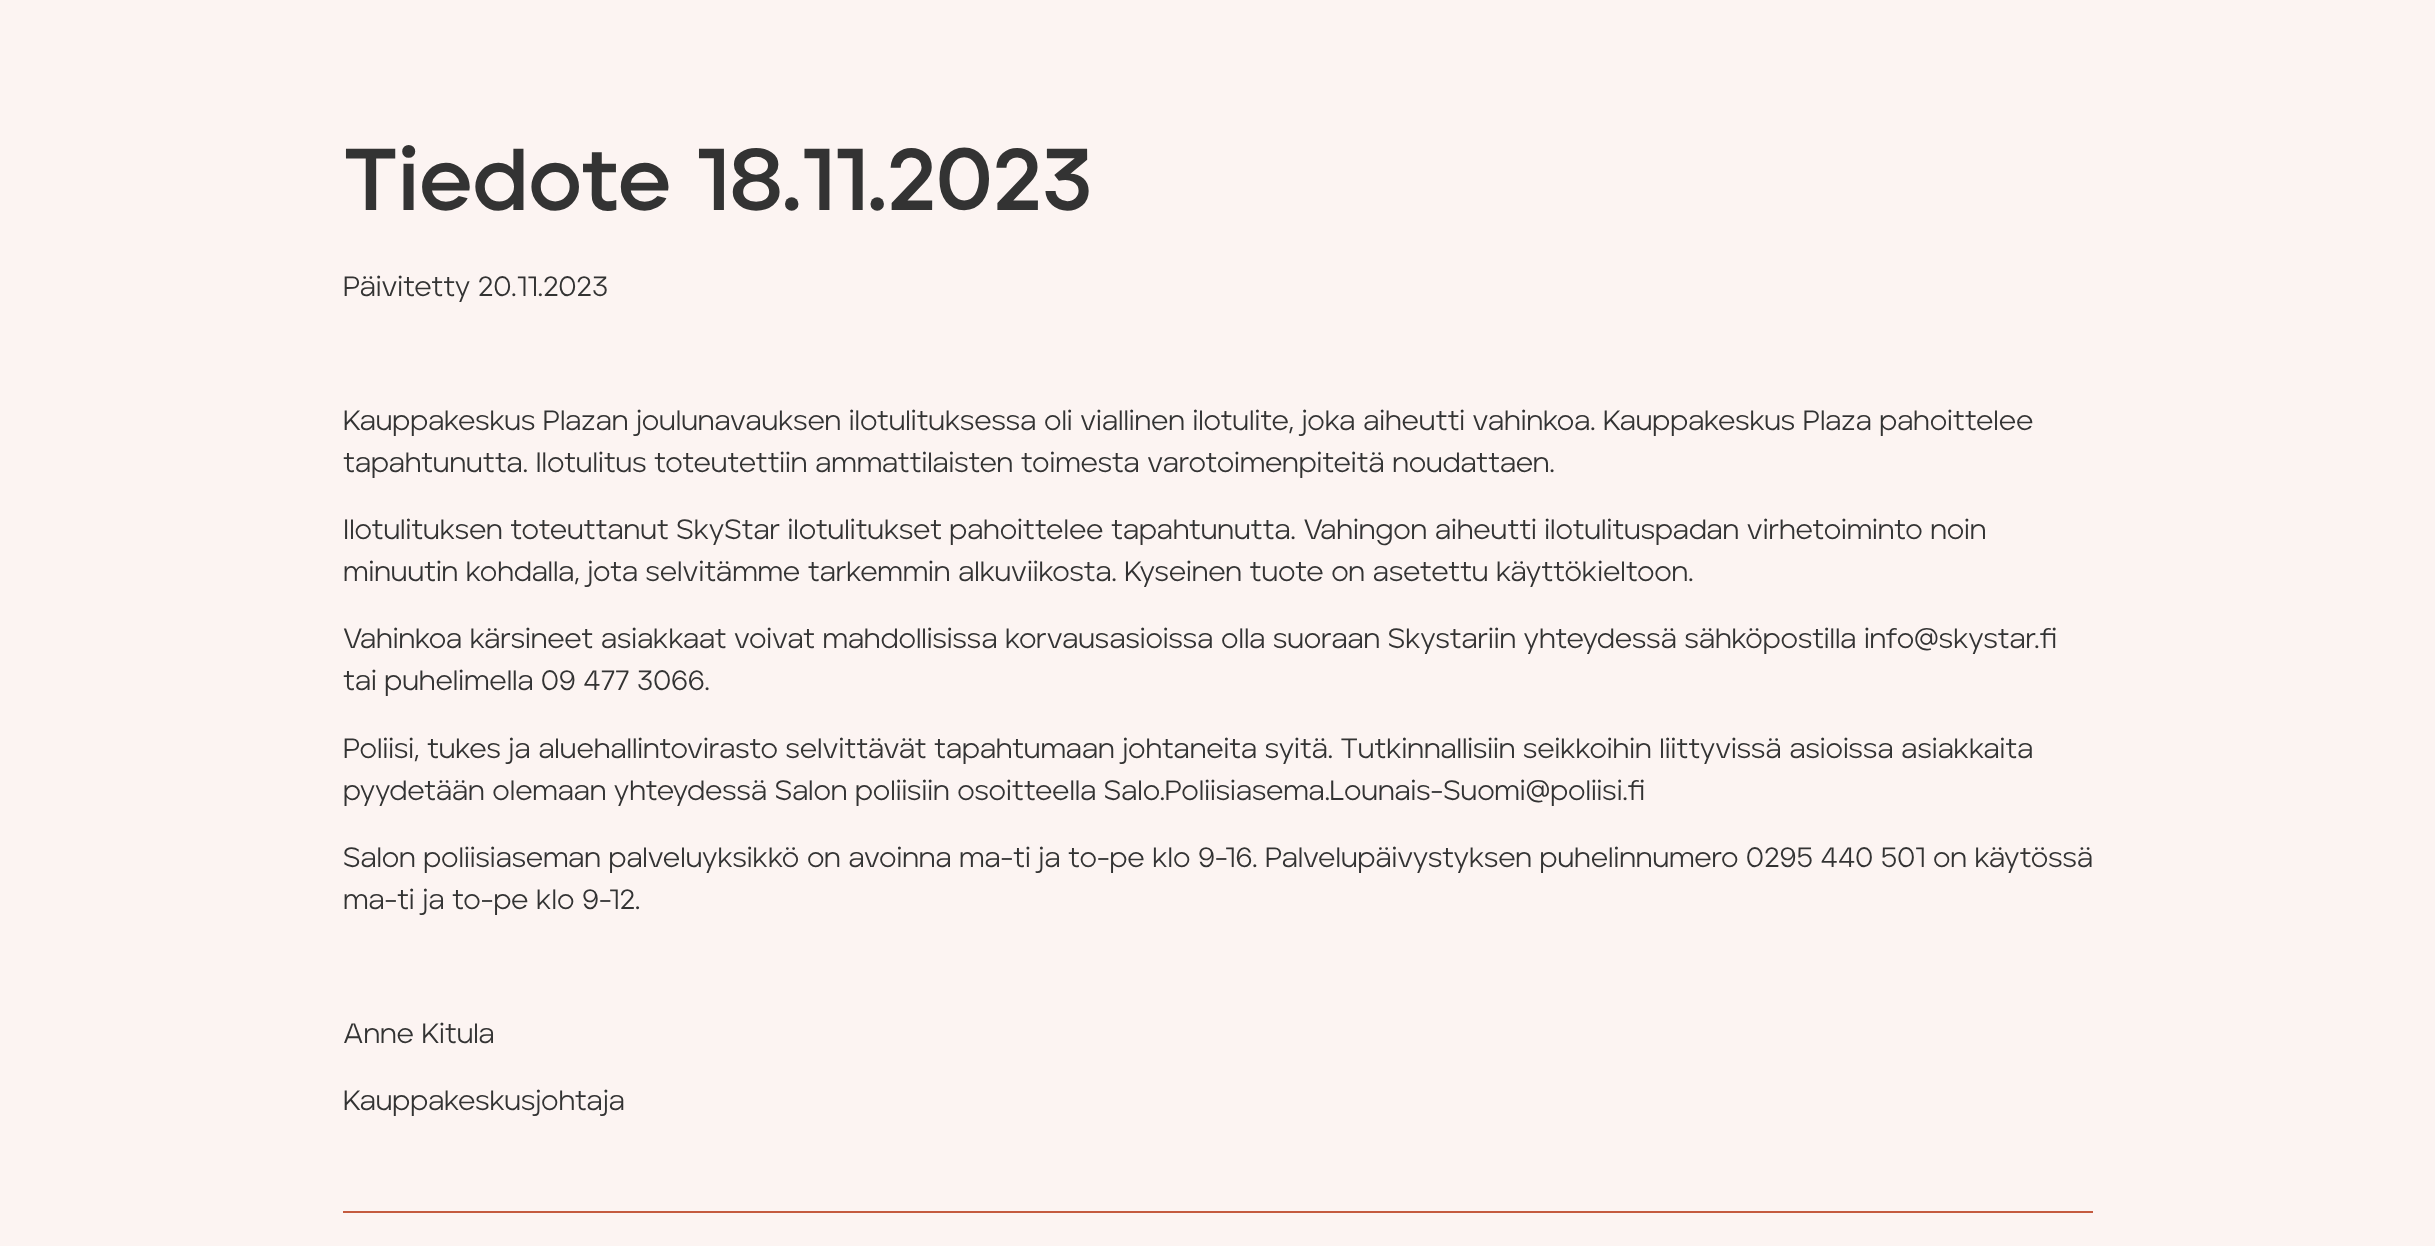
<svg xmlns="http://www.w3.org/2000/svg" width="2435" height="1246">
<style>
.a{font:bold 87.5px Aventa;fill:#333}
.b{font:28px Aventa;fill:#333}
</style>
<rect width="100%" height="100%" fill="#fcf4f2"/>
<path fill="#c45b3f" d="M343 1211h1750v2H343z"/>
<text class="a" x="343" y="210">Tiedote 18.11.2023</text>
<text class="b" x="343" y="296">Päivitetty 20.11.2023</text>
<text class="b" x="343" y="430">Kauppakeskus Plazan joulunavauksen ilotulituksessa oli viallinen ilotulite, joka aiheutti vahinkoa. Kauppakeskus Plaza pahoittelee</text>
<text class="b" x="343" y="472">tapahtunutta. Ilotulitus toteutettiin ammattilaisten toimesta varotoimenpiteitä noudattaen.</text>
<text class="b" x="343" y="539">Ilotulituksen toteuttanut SkyStar ilotulitukset pahoittelee tapahtunutta. Vahingon aiheutti ilotulituspadan virhetoiminto noin</text>
<text class="b" x="343" y="581">minuutin kohdalla, jota selvitämme tarkemmin alkuviikosta. Kyseinen tuote on asetettu käyttökieltoon.</text>
<text class="b" x="343" y="648">Vahinkoa kärsineet asiakkaat voivat mahdollisissa korvausasioissa olla suoraan Skystariin yhteydessä sähköpostilla info@skystar.fi</text>
<text class="b" x="343" y="690">tai puhelimella 09 477 3066.</text>
<text class="b" x="343" y="758">Poliisi, tukes ja aluehallintovirasto selvittävät tapahtumaan johtaneita syitä. Tutkinnallisiin seikkoihin liittyvissä asioissa asiakkaita</text>
<text class="b" x="343" y="800">pyydetään olemaan yhteydessä Salon poliisiin osoitteella Salo.Poliisiasema.Lounais-Suomi@poliisi.fi</text>
<text class="b" x="343" y="867">Salon poliisiaseman palveluyksikkö on avoinna ma-ti ja to-pe klo 9-16. Palvelupäivystyksen puhelinnumero 0295 440 501 on käytössä</text>
<text class="b" x="343" y="909">ma-ti ja to-pe klo 9-12.</text>
<text class="b" x="343" y="1043">Anne Kitula</text>
<text class="b" x="343" y="1110">Kauppakeskusjohtaja</text>
</svg>
